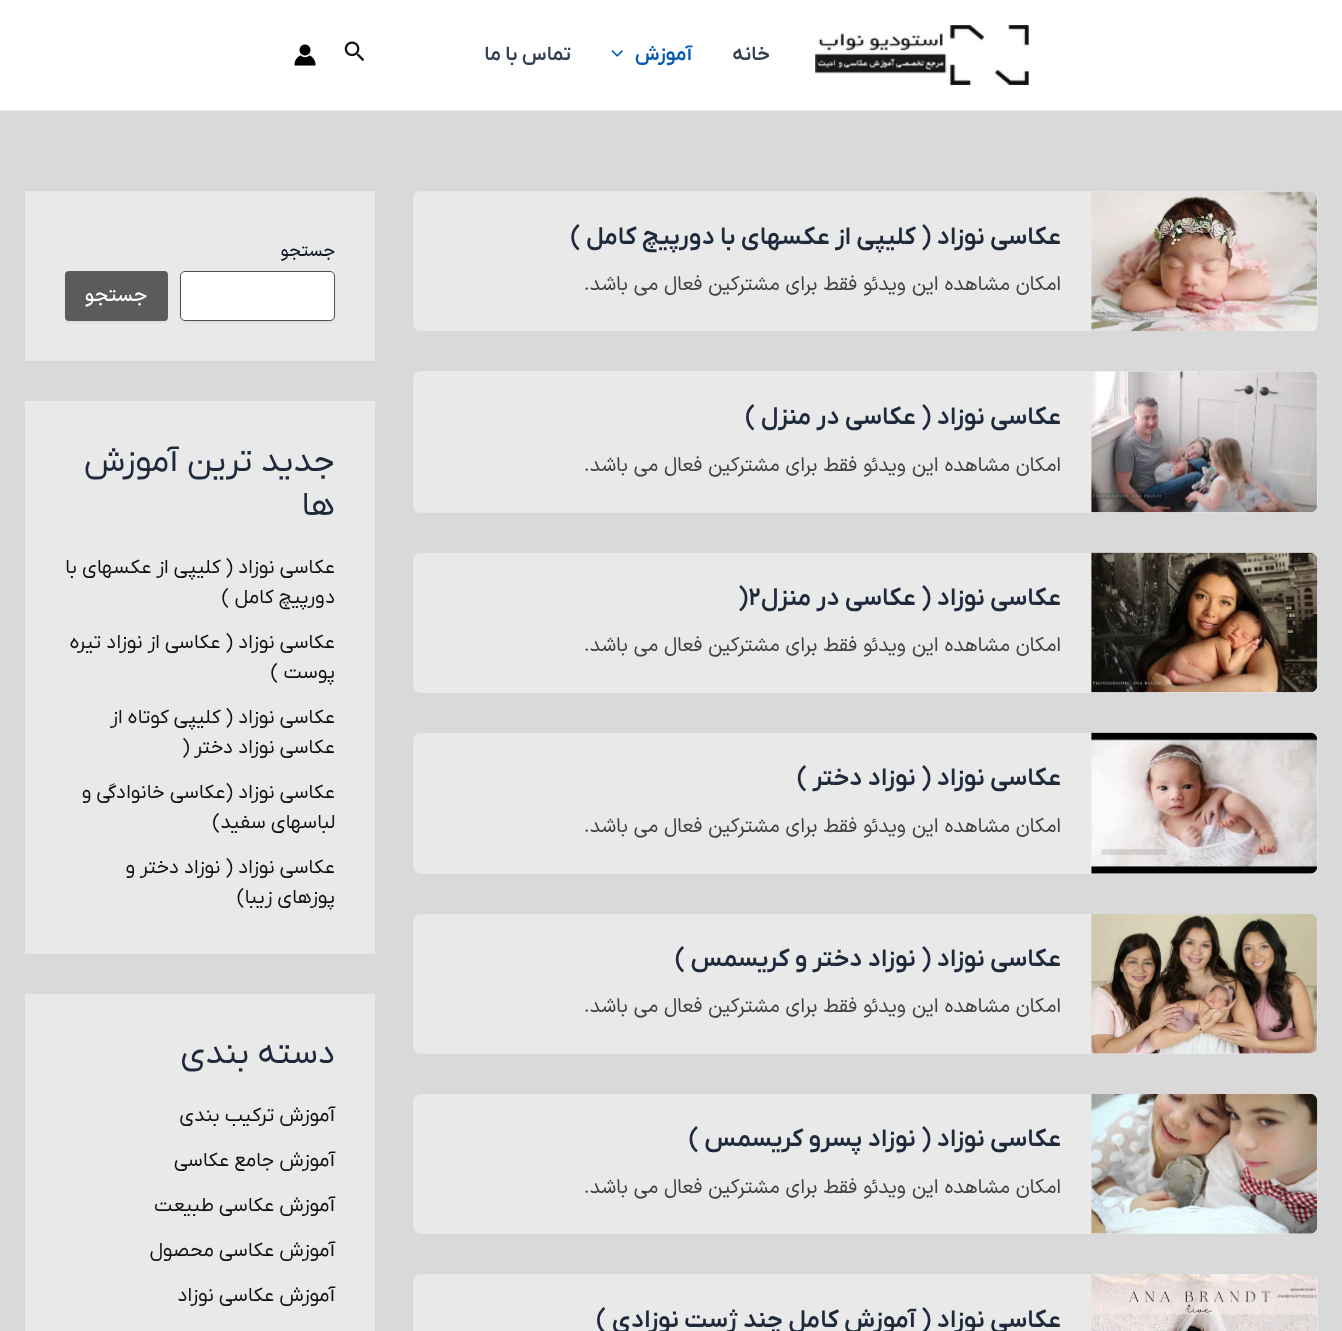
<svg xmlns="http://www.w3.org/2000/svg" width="1342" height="1331">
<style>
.a{font:600 20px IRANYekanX;direction:rtl;fill:#334155}
.b{font:600 20px IRANYekanX;direction:rtl;fill:#045cb4}
.c{font:600 25px IRANYekanX;direction:rtl;fill:#1e293b}
.d{font:20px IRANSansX;direction:rtl;fill:#404040}
.e{font:600 25px IRANYekanX;fill:#1e293b}
.f{font:500 17.5px IRANSansX;direction:rtl;fill:#111827}
.g{font:500 20px IRANSansX;direction:rtl;fill:#fff}
.h{font:34px IRANYekanX;direction:rtl;fill:#1e293b}
.i{font:20px IRANYekanX;direction:rtl;fill:#111}
.j{font:20px IRANYekanX;fill:#111}
</style>
<rect width="100%" height="100%" fill="#d9d9d9"/>
<path fill="#fff" d="M0 0h1342v110H0z"/>
<path fill="#eaeaea" d="M0 110h1342v1H0z"/>
<image href="1.png" x="815" y="25" width="214" height="60"/>
<image href="2.png" x="611" y="50" width="12" height="7"/>
<image href="3.png" x="344" y="41" width="20" height="21"/>
<image href="4.png" x="294" y="44" width="22" height="22"/>
<rect fill="#e9e9e9" x="413" y="191" width="905" height="140" rx="8"/>
<image href="5.png" x="1091" y="191" width="227" height="140"/>
<rect fill="#e9e9e9" x="413" y="371" width="905" height="142" rx="8"/>
<image href="6.png" x="1091" y="371" width="227" height="142"/>
<rect fill="#e9e9e9" x="413" y="553" width="905" height="140" rx="8"/>
<image href="7.png" x="1091" y="552" width="227" height="141"/>
<rect fill="#e9e9e9" x="413" y="733" width="905" height="141" rx="8"/>
<image href="8.png" x="1091" y="732" width="227" height="142"/>
<rect fill="#e9e9e9" x="413" y="914" width="905" height="140" rx="8"/>
<image href="9.png" x="1091" y="914" width="227" height="140"/>
<rect fill="#e9e9e9" x="413" y="1094" width="905" height="140" rx="8"/>
<image href="10.png" x="1091" y="1094" width="227" height="140"/>
<rect fill="#e9e9e9" x="413" y="1274" width="905" height="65" rx="8"/>
<image href="11.png" x="1091" y="1274" width="227" height="57"/>
<path fill="#e9e9e9" d="M25 191h350v170H25z"/>
<rect fill="#0000000d" filter="blur(1px)" x="180" y="273" width="155" height="50" rx="5"/>
<rect fill="#fff" stroke="#4f4f4f" x="180.5" y="271.5" width="154" height="49" rx="4.5"/>
<rect fill="#0000000d" filter="blur(1px)" x="65" y="273" width="103" height="50" rx="4"/>
<rect fill="#5b5b5b" x="65" y="271" width="103" height="50" rx="4"/>
<path fill="#e9e9e9" d="M25 401h350v553H25z"/>
<path fill="#e9e9e9" d="M25 994h350v337H25z"/>
<text class="a" x="770" y="60">خانه</text>
<text class="b" x="692" y="60">آموزش</text>
<text class="a" x="571" y="60">تماس با ما</text>
<text class="c" x="1061" y="244">عکاسی نوزاد ( کلیپی از عکسهای با دورپیچ کامل )</text>
<text class="d" x="1061" y="290">امکان مشاهده این ویدئو فقط برای مشترکین فعال می باشد.</text>
<text class="c" x="1061" y="424">عکاسی نوزاد ( عکاسی در منزل )</text>
<text class="d" x="1061" y="471">امکان مشاهده این ویدئو فقط برای مشترکین فعال می باشد.</text>
<text class="c" x="1061" y="605">عکاسی نوزاد ( عکاسی در منزل</text>
<text class="e" x="738" y="605">)۲</text>
<text class="d" x="1061" y="651">امکان مشاهده این ویدئو فقط برای مشترکین فعال می باشد.</text>
<text class="c" x="1061" y="785">عکاسی نوزاد ( نوزاد دختر )</text>
<text class="d" x="1061" y="832">امکان مشاهده این ویدئو فقط برای مشترکین فعال می باشد.</text>
<text class="c" x="1061" y="966">عکاسی نوزاد ( نوزاد دختر و کریسمس )</text>
<text class="d" x="1061" y="1012">امکان مشاهده این ویدئو فقط برای مشترکین فعال می باشد.</text>
<text class="c" x="1061" y="1146">عکاسی نوزاد ( نوزاد پسرو کریسمس )</text>
<text class="d" x="1061" y="1193">امکان مشاهده این ویدئو فقط برای مشترکین فعال می باشد.</text>
<text class="c" x="1061" y="1327">عکاسی نوزاد ( آموزش کامل چند ژست نوزادی )</text>
<text class="f" x="335" y="256">جستجو</text>
<text class="g" x="147" y="301">جستجو</text>
<text class="h" x="335" y="471">جدید ترین آموزش</text>
<text class="h" x="335" y="515">ها</text>
<text class="i" x="335" y="573">عکاسی نوزاد ( کلیپی از عکسهای با</text>
<text class="i" x="335" y="603">دورپیچ کامل )</text>
<text class="i" x="335" y="648">عکاسی نوزاد ( عکاسی از نوزاد تیره</text>
<text class="i" x="335" y="678">پوست )</text>
<text class="i" x="335" y="723">عکاسی نوزاد ( کلیپی کوتاه از</text>
<text class="i" x="335" y="753">عکاسی نوزاد دختر</text>
<text class="j" x="182" y="753">)</text>
<text class="i" x="335" y="798">عکاسی نوزاد (عکاسی خانوادگی و</text>
<text class="i" x="335" y="828">لباسهای سفید)</text>
<text class="i" x="335" y="873">عکاسی نوزاد ( نوزاد دختر و</text>
<text class="i" x="335" y="903">پوزهای زیبا)</text>
<text class="h" x="335" y="1063">دسته بندی</text>
<text class="i" x="335" y="1121">آموزش ترکیب بندی</text>
<text class="i" x="335" y="1166">آموزش جامع عکاسی</text>
<text class="i" x="335" y="1211">آموزش عکاسی طبیعت</text>
<text class="i" x="335" y="1256">آموزش عکاسی محصول</text>
<text class="i" x="335" y="1301">آموزش عکاسی نوزاد</text>
</svg>
